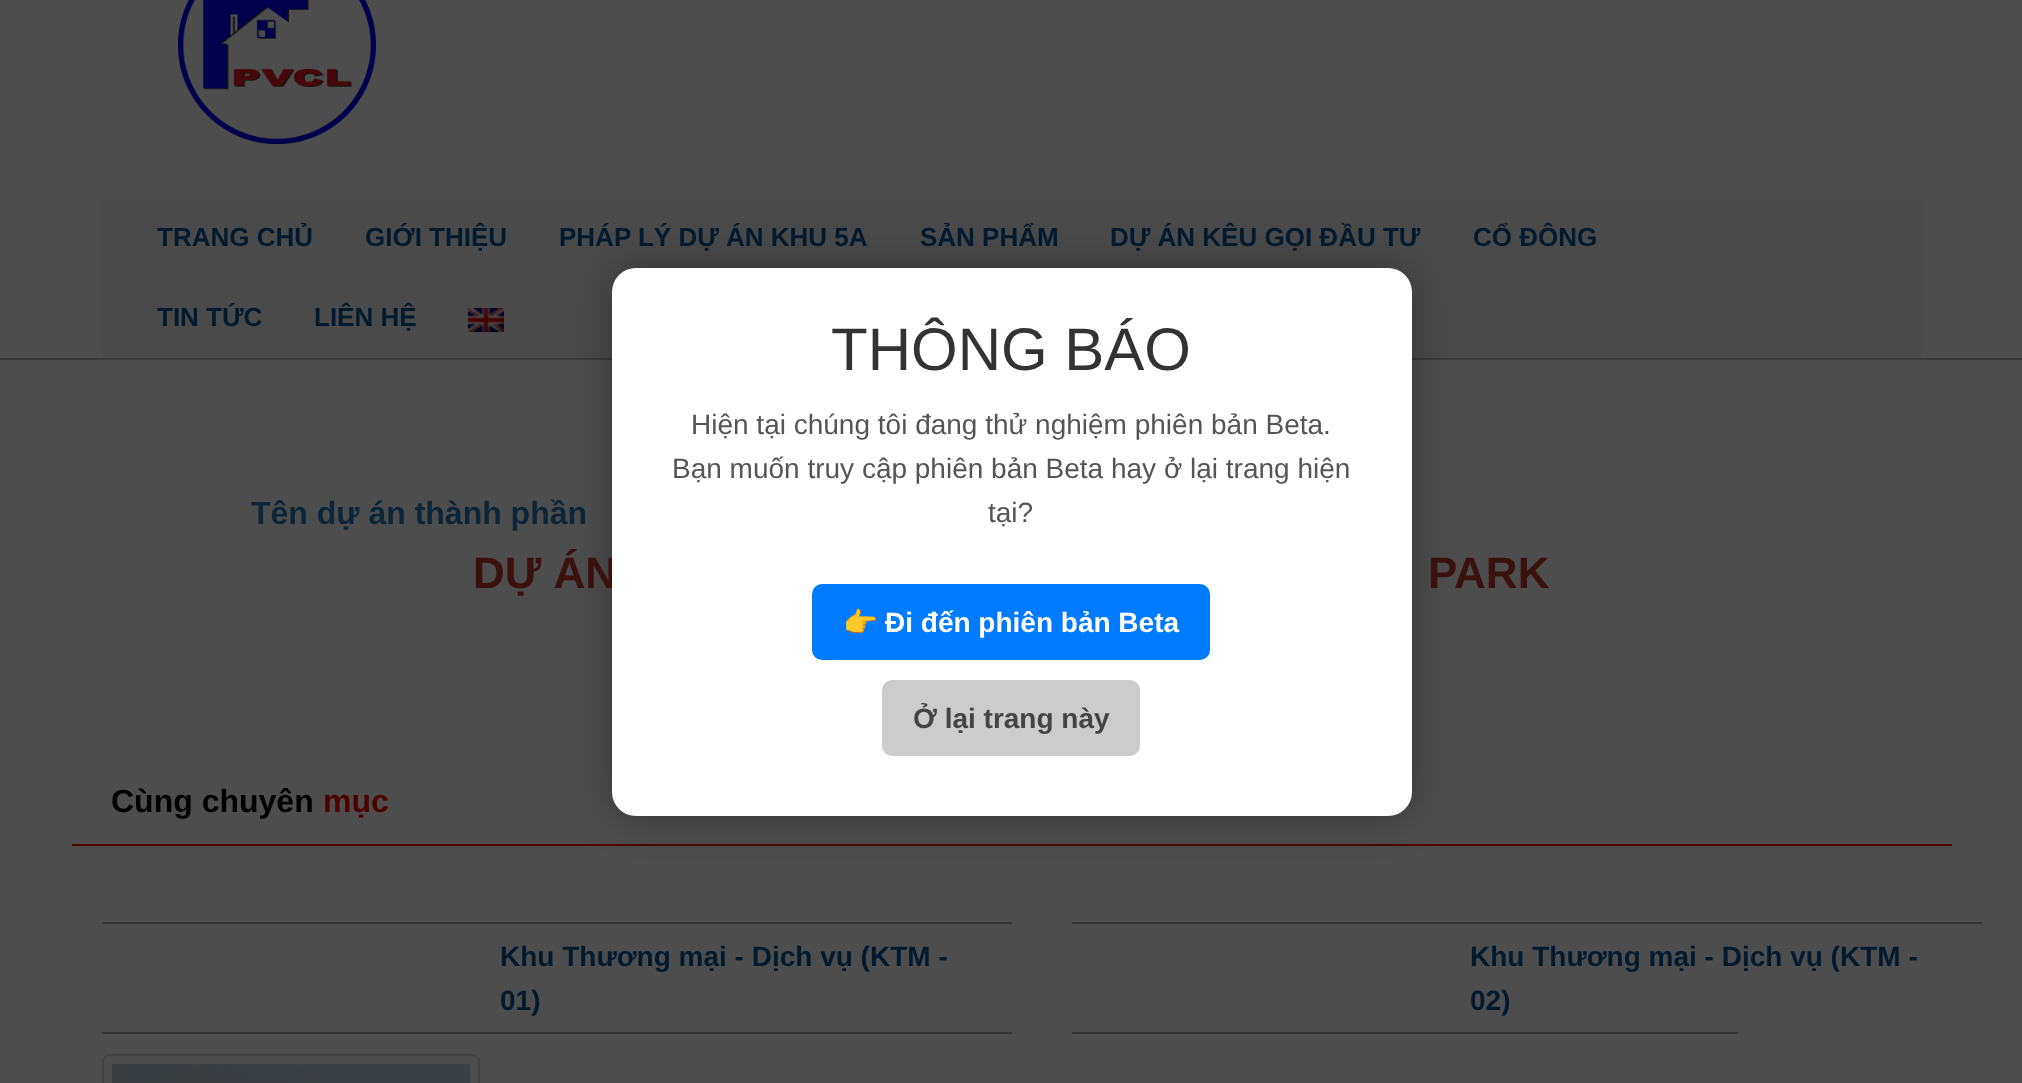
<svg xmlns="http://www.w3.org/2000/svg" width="2022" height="1083">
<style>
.a{font:bold 26px Liberation Sans;fill:#021a2e}
.b{font:bold 32px Liberation Sans;fill:#0c2638}
.c{font:bold 44px Liberation Sans;fill:#3a110d}
.d{font:bold 28px Liberation Sans;fill:#444}
.e{font:bold 28px Liberation Sans;fill:#fff}
.f{font:bold 28px Noto Color Emoji;fill:#fff}
.g{font:28px Liberation Sans;fill:#555}
.h{font:60px Liberation Sans;fill:#333}
.i{font:bold 32px Liberation Sans;fill:#000}
.j{font:bold 32px Liberation Sans;fill:#4d0000}
.k{font:bold 28px Liberation Sans;fill:#021a2e}
</style>
<rect width="100%" height="100%" fill="#4d4d4d"/>
<path fill="#393939" d="M0 358h2022v2H0z"/>
<image href="1.png" x="178" y="0" width="198" height="144"/>
<path fill="#4a4a4a" d="M102 198h1820v160H102z"/>
<image href="2.png" x="468" y="308" width="36" height="24"/>
<path fill="#4d0000" d="M72 844h1880v2H72z"/>
<rect fill="#0000004d" filter="blur(20px)" x="612" y="268" width="800" height="548" rx="24"/>
<path fill="#353333" d="M102 922h910v2H102z"/>
<path fill="#353333" d="M1072 922h910v2H1072z"/>
<path fill="#353333" d="M102 1032h910v2H102z"/>
<rect fill="none" stroke="#424242" stroke-width="2" x="103" y="1055" width="376" height="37" rx="7"/>
<image href="3.png" x="112" y="1064" width="358" height="19"/>
<path fill="#353333" d="M1072 1032h666v2H1072z"/>
<text class="a" x="157" y="246">TRANG CHỦ</text>
<text class="a" x="365" y="246">GIỚI THIỆU</text>
<text class="a" x="559" y="246">PHÁP LÝ DỰ ÁN KHU 5A</text>
<text class="a" x="920" y="246">SẢN PHẨM</text>
<text class="a" x="1110" y="246">DỰ ÁN KÊU GỌI ĐẦU TƯ</text>
<text class="a" x="1473" y="246">CỔ ĐÔNG</text>
<text class="a" x="157" y="326">TIN TỨC</text>
<text class="a" x="314" y="326">LIÊN HỆ</text>
<text class="b" x="251" y="524">Tên dự án thành phần</text>
<text class="c" x="473" y="588">DỰ ÁN</text>
<rect fill="#fff" x="612" y="268" width="800" height="548" rx="24"/>
<rect fill="#ccc" x="882" y="680" width="258" height="76" rx="10"/>
<text class="d" x="913" y="728">Ở lại trang này</text>
<rect fill="#007bff" x="812" y="584" width="398" height="76" rx="10"/>
<text class="e" x="885" y="632">Đi đến phiên bản Beta</text>
<text class="f" x="843" y="632">👉</text>
<text class="g" x="988" y="522">tại?</text>
<text class="g" x="672" y="478">Bạn muốn truy cập phiên bản Beta hay ở lại trang hiện</text>
<text class="g" x="691" y="434">Hiện tại chúng tôi đang thử nghiệm phiên bản Beta.</text>
<text class="h" x="831" y="370">THÔNG BÁO</text>
<text class="c" x="1428" y="588">PARK</text>
<text class="i" x="111" y="812">Cùng chuyên</text>
<text class="j" x="323" y="812">mục</text>
<text class="k" x="500" y="966">Khu Thương mại - Dịch vụ (KTM -</text>
<text class="k" x="500" y="1010">01)</text>
<text class="k" x="1470" y="966">Khu Thương mại - Dịch vụ (KTM -</text>
<text class="k" x="1470" y="1010">02)</text>
</svg>
